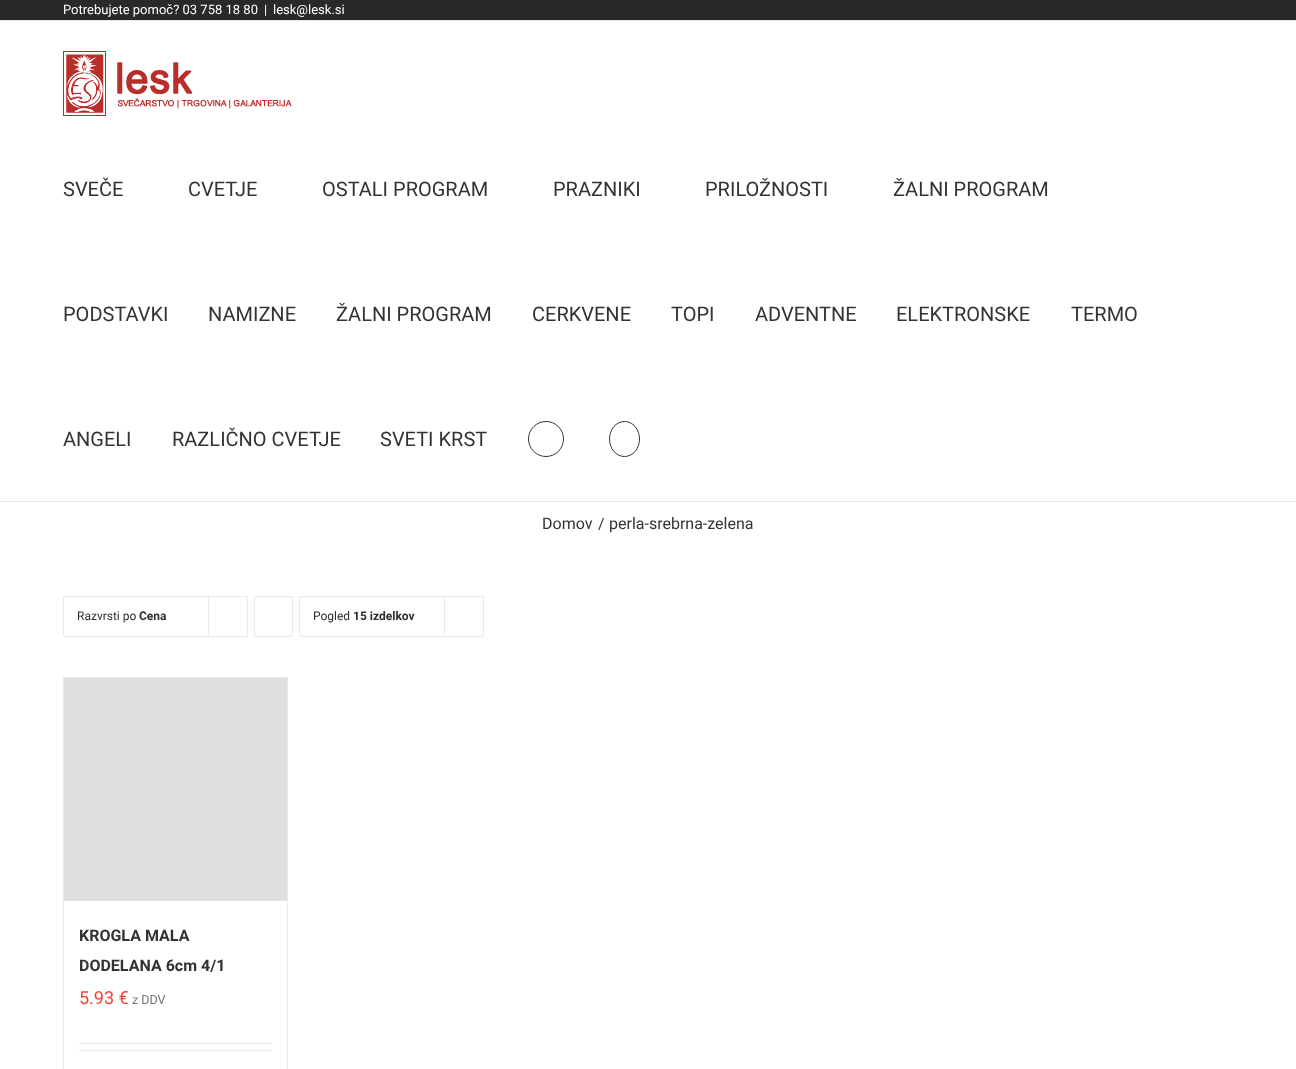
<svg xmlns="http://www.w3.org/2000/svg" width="1296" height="1069">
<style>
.a{font:13px Roboto;fill:#fff}
.b{font:20px Roboto;fill:#333}
.c{font:16px Roboto;fill:#333}
.d{font:12px Roboto;fill:#2b2e32}
.e{font:bold 12px Roboto;fill:#2b2e32}
.f{font:bold 16px Roboto;fill:#333}
.g{font:18px Roboto;fill:#f44336}
.h{font:12.5px Roboto;fill:#747474}
</style>
<rect width="100%" height="100%" fill="#fff"/>
<path fill="#29292a" d="M0 0h1296v20H0z"/>
<path fill="#e5e5e5" d="M0 20h1296v1H0z"/>
<path fill="#e5e5e5" d="M0 501h1296v1H0z"/>
<image href="1.png" x="63" y="51" width="229" height="65"/>
<circle fill="none" stroke="#333" cx="546" cy="439" r="17.5"/>
<path fill="none" stroke="#333" d="M624.5 421.5c8.5 0 15 8 15 17.5c0 9.5-6.5 17.5-15 17.5c-8.5 0-15-8-15-17.5c0-9.5 6.5-17.5 15-17.5z"/>
<path fill="none" stroke="#eaeaea" d="M63.5 596.5h184v40H63.5z"/>
<path fill="#eaeaea" d="M208 596h1v39H208z"/>
<path fill="none" stroke="#eaeaea" d="M254.5 596.5h38v40H254.5z"/>
<path fill="none" stroke="#eaeaea" d="M299.5 596.5h184v40H299.5z"/>
<path fill="#eaeaea" d="M444 596h1v39H444z"/>
<path fill="#ebeaea" d="M63 677h225v1H63z"/>
<path fill="#ebeaea" d="M287 677h1v392H287z"/>
<path fill="#ebeaea" d="M63 677h1v392H63z"/>
<path fill="#e0dede" d="M64 678h223v223H64z"/>
<path fill="#eaeaea" d="M79 1043h193v1H79z"/>
<path fill="#eaeaea" d="M79 1050h193v1H79z"/>
<text class="a" x="63" y="14">Potrebujete pomoč? 03 758 18 80</text>
<text class="a" x="264" y="14">|</text>
<text class="a" x="273" y="14">lesk@lesk.si</text>
<text class="b" x="63" y="196">SVEČE</text>
<text class="b" x="188" y="196">CVETJE</text>
<text class="b" x="322" y="196">OSTALI PROGRAM</text>
<text class="b" x="553" y="196">PRAZNIKI</text>
<text class="b" x="705" y="196">PRILOŽNOSTI</text>
<text class="b" x="893" y="196">ŽALNI PROGRAM</text>
<text class="b" x="63" y="321">PODSTAVKI</text>
<text class="b" x="208" y="321">NAMIZNE</text>
<text class="b" x="336" y="321">ŽALNI PROGRAM</text>
<text class="b" x="532" y="321">CERKVENE</text>
<text class="b" x="671" y="321">TOPI</text>
<text class="b" x="755" y="321">ADVENTNE</text>
<text class="b" x="896" y="321">ELEKTRONSKE</text>
<text class="b" x="1071" y="321">TERMO</text>
<text class="b" x="63" y="446">ANGELI</text>
<text class="b" x="172" y="446">RAZLIČNO CVETJE</text>
<text class="b" x="380" y="446">SVETI KRST</text>
<text class="c" x="542" y="529">Domov</text>
<text class="c" x="598" y="529">/</text>
<text class="c" x="609" y="529">perla-srebrna-zelena</text>
<text class="d" x="77" y="620">Razvrsti po</text>
<text class="e" x="139" y="620">Cena</text>
<text class="d" x="313" y="620">Pogled</text>
<text class="e" x="353" y="620">15 izdelkov</text>
<text class="f" x="79" y="941">KROGLA MALA</text>
<text class="f" x="79" y="971">DODELANA 6cm 4/1</text>
<text class="g" x="79" y="1004">5.93 €</text>
<text class="h" x="132" y="1004">z DDV</text>
</svg>
